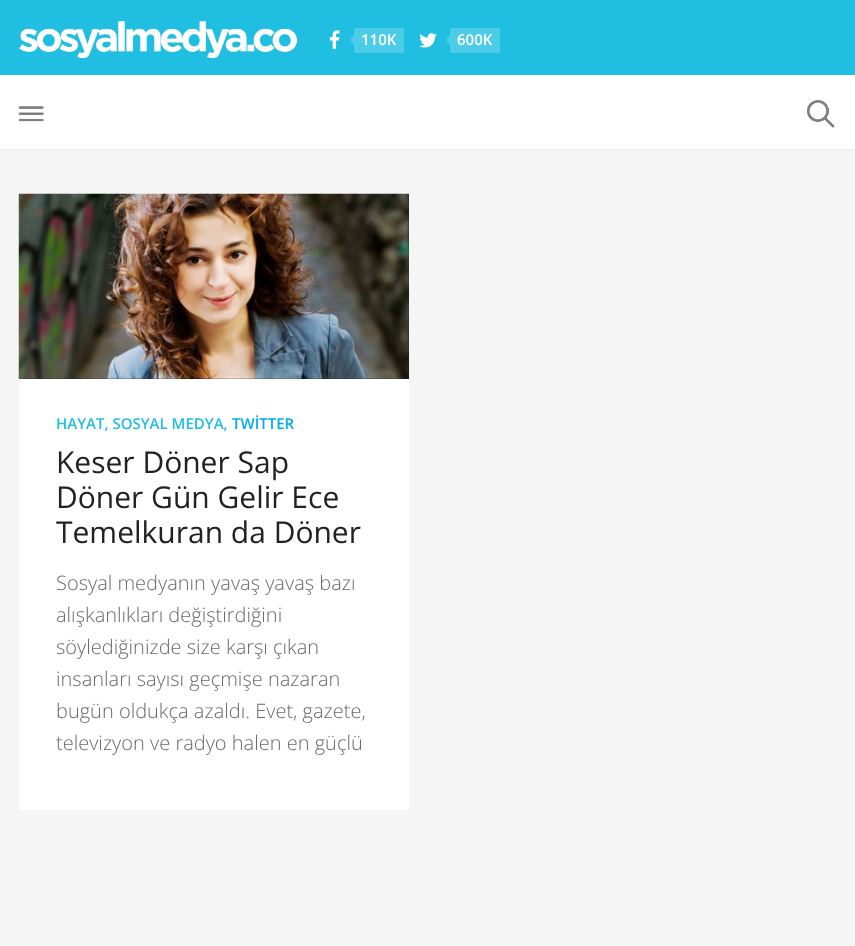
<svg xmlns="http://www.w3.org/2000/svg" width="855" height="946">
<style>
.a{font:600 15px Open Sans;fill:#fff}
.b{font:600 15px Open Sans;fill:#20bee1}
.c{font:600 15px Open Sans;fill:#00aced}
.d{font:30px Open Sans;fill:#222}
.e{font:300 20px Open Sans;fill:#6a6a6a}
</style>
<rect width="100%" height="100%" fill="#f5f5f5"/>
<path fill="#20bee1" d="M0 0h855v75H0z"/>
<image href="1.png" x="19" y="21" width="279" height="38"/>
<image href="2.png" x="329" y="30" width="11" height="19"/>
<rect fill="#4dcce7" x="354" y="28" width="50" height="25" rx="2.5"/>
<path fill="#4dcce7" d="M354 35v10l-4-5z"/>
<image href="3.png" x="419" y="33" width="18" height="15"/>
<rect fill="#4dcce7" x="450" y="28" width="50" height="25" rx="2.5"/>
<path fill="#4dcce7" d="M450 35v10l-4-5z"/>
<path fill="#fff" d="M0 75h855v74H0z"/>
<path fill="#efefef" d="M0 149h855v1H0z"/>
<image href="4.png" x="18" y="106" width="26" height="16"/>
<image href="5.png" x="807" y="100" width="28" height="28"/>
<path fill="#fff" d="M19 379h390v431H19z"/>
<path fill="#222" d="M19 194h390v185H19z"/>
<image href="6.png" x="18" y="193" width="391" height="186"/>
<text class="a" x="361" y="45">110K</text>
<text class="a" x="457" y="45">600K</text>
<text class="b" x="56" y="429">HAYAT, SOSYAL MEDYA,</text>
<text class="c" x="232" y="429">TWİTTER</text>
<text class="d" x="56" y="473">Keser Döner Sap</text>
<text class="d" x="56" y="508">Döner Gün Gelir Ece</text>
<text class="d" x="56" y="543">Temelkuran da Döner</text>
<text class="e" x="56" y="590">Sosyal medyanın yavaş yavaş bazı</text>
<text class="e" x="56" y="622">alışkanlıkları değiştirdiğini</text>
<text class="e" x="56" y="654">söylediğinizde size karşı çıkan</text>
<text class="e" x="56" y="686">insanları sayısı geçmişe nazaran</text>
<text class="e" x="56" y="718">bugün oldukça azaldı. Evet, gazete,</text>
<text class="e" x="56" y="750">televizyon ve radyo halen en güçlü</text>
</svg>
